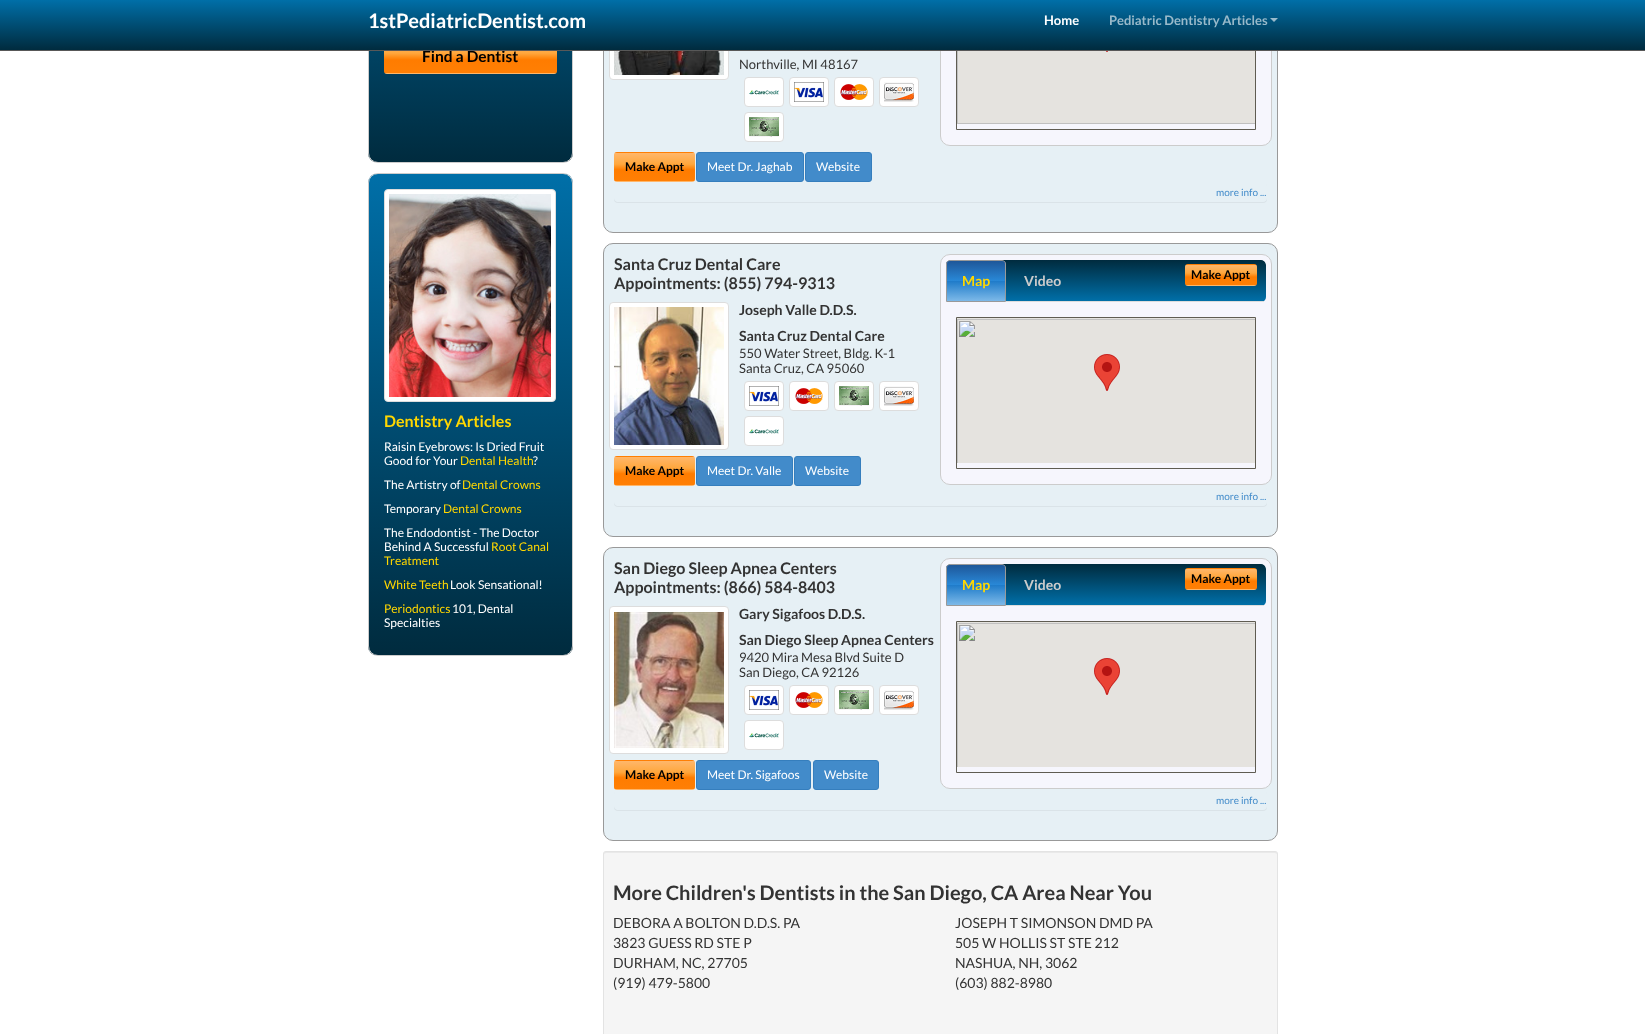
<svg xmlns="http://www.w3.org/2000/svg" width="1645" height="1034">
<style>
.a{font:bold 20px Lato;fill:#fff}
.b{font:bold 13px Lato;fill:#fff}
.c{font:bold 13px Lato;fill:#99baca}
.d{font:bold 15.5px Lato;fill:#000}
.e{font:bold 16px Lato;fill:#ffd700}
.f{font:12px Lato;fill:#fff}
.g{font:12px Lato;fill:#ffd700}
.h{font:13px Lato;fill:#333}
.i{font:bold 12px Lato;fill:#000}
.j{font:10px Lato;fill:#428bca}
.k{font:bold 16px Lato;fill:#333}
.l{font:bold 14px Lato;fill:#333}
.m{font:bold 14px Lato;fill:#ffd700}
.n{font:bold 14px Lato;fill:#ccc}
.o{font:bold 20px Lato;fill:#333}
.p{font:14px Lato;fill:#333}
</style>
<defs>
<clipPath id="clip1"><rect x="368" y="-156" width="205" height="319" rx="10"/></clipPath>
<linearGradient id="g1" gradientUnits="userSpaceOnUse" x1="471" y1="-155" x2="471" y2="162"><stop offset="0" stop-color="#006fa8"/><stop offset="1" stop-color="#002b3e"/></linearGradient>
<linearGradient id="g2" gradientUnits="userSpaceOnUse" x1="823" y1="0" x2="823" y2="50"><stop offset="0" stop-color="#006fa8"/><stop offset="1" stop-color="#002b3e"/></linearGradient>
<clipPath id="clip2"><rect x="384" y="39" width="173" height="35" rx="3"/></clipPath>
<linearGradient id="g3" gradientUnits="userSpaceOnUse" x1="471" y1="40" x2="471" y2="73"><stop offset="0" stop-color="#ffb76b"/><stop offset="0.4" stop-color="#ffa73d"/><stop offset="0.6" stop-color="#ff7c00"/><stop offset="1" stop-color="#ff7f04"/></linearGradient>
<linearGradient id="g4" gradientUnits="userSpaceOnUse" x1="471" y1="73" x2="471" y2="106"><stop offset="0" stop-color="#ffb76b"/><stop offset="0.4" stop-color="#ffa73d"/><stop offset="0.6" stop-color="#ff7c00"/><stop offset="1" stop-color="#ff7f04"/></linearGradient>
<clipPath id="clip3"><rect x="368" y="173" width="205" height="483" rx="10"/></clipPath>
<linearGradient id="g5" gradientUnits="userSpaceOnUse" x1="470" y1="174" x2="471" y2="655"><stop offset="0" stop-color="#006fa8"/><stop offset="1" stop-color="#002b3e"/></linearGradient>
<clipPath id="clip4"><rect x="614" y="152" width="81" height="30" rx="3"/></clipPath>
<linearGradient id="g6" gradientUnits="userSpaceOnUse" x1="655" y1="125" x2="655" y2="153"><stop offset="0" stop-color="#ffb76b"/><stop offset="0.4" stop-color="#ffa73d"/><stop offset="0.6" stop-color="#ff7c00"/><stop offset="1" stop-color="#ff7f04"/></linearGradient>
<linearGradient id="g7" gradientUnits="userSpaceOnUse" x1="655" y1="153" x2="655" y2="181"><stop offset="0" stop-color="#ffb76b"/><stop offset="0.4" stop-color="#ffa73d"/><stop offset="0.6" stop-color="#ff7c00"/><stop offset="1" stop-color="#ff7f04"/></linearGradient>
<linearGradient id="g8" gradientUnits="userSpaceOnUse" x1="655" y1="181" x2="655" y2="209"><stop offset="0" stop-color="#ffb76b"/><stop offset="0.4" stop-color="#ffa73d"/><stop offset="0.6" stop-color="#ff7c00"/><stop offset="1" stop-color="#ff7f04"/></linearGradient>
<clipPath id="clip5"><path d="M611 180h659v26h-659zm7 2h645c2 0 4 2 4 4v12c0 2-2 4-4 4h-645c-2 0-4-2-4-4v-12c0-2 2-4 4-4z" clip-rule="evenodd"/></clipPath>
<clipPath id="clip6"><rect x="614" y="456" width="81" height="30" rx="3"/></clipPath>
<linearGradient id="g9" gradientUnits="userSpaceOnUse" x1="655" y1="429" x2="655" y2="457"><stop offset="0" stop-color="#ffb76b"/><stop offset="0.4" stop-color="#ffa73d"/><stop offset="0.6" stop-color="#ff7c00"/><stop offset="1" stop-color="#ff7f04"/></linearGradient>
<linearGradient id="g10" gradientUnits="userSpaceOnUse" x1="655" y1="457" x2="655" y2="485"><stop offset="0" stop-color="#ffb76b"/><stop offset="0.4" stop-color="#ffa73d"/><stop offset="0.6" stop-color="#ff7c00"/><stop offset="1" stop-color="#ff7f04"/></linearGradient>
<linearGradient id="g11" gradientUnits="userSpaceOnUse" x1="655" y1="485" x2="655" y2="513"><stop offset="0" stop-color="#ffb76b"/><stop offset="0.4" stop-color="#ffa73d"/><stop offset="0.6" stop-color="#ff7c00"/><stop offset="1" stop-color="#ff7f04"/></linearGradient>
<clipPath id="clip7"><rect x="946" y="260" width="320" height="42" rx="5"/></clipPath>
<linearGradient id="g12" gradientUnits="userSpaceOnUse" x1="1106" y1="260" x2="1106" y2="301"><stop offset="0" stop-color="#002b3e"/><stop offset="1" stop-color="#006fa8"/></linearGradient>
<clipPath id="clip8"><path d="M950 260h52c2 0 4 2 4 4v38h-60v-38c0-2 2-4 4-4z"/></clipPath>
<linearGradient id="g13" gradientUnits="userSpaceOnUse" x1="976" y1="261" x2="976" y2="301"><stop offset="0" stop-color="#1e5799"/><stop offset="0.5" stop-color="#2989d8"/><stop offset="0.51" stop-color="#207cca"/><stop offset="1" stop-color="#7db9e8"/></linearGradient>
<clipPath id="clip9"><rect x="1185" y="264" width="72" height="22" rx="3"/></clipPath>
<linearGradient id="g14" gradientUnits="userSpaceOnUse" x1="1221" y1="245" x2="1221" y2="265"><stop offset="0" stop-color="#ffb76b"/><stop offset="0.4" stop-color="#ffa73d"/><stop offset="0.6" stop-color="#ff7c00"/><stop offset="1" stop-color="#ff7f04"/></linearGradient>
<linearGradient id="g15" gradientUnits="userSpaceOnUse" x1="1221" y1="265" x2="1221" y2="285"><stop offset="0" stop-color="#ffb76b"/><stop offset="0.4" stop-color="#ffa73d"/><stop offset="0.6" stop-color="#ff7c00"/><stop offset="1" stop-color="#ff7f04"/></linearGradient>
<linearGradient id="g16" gradientUnits="userSpaceOnUse" x1="1221" y1="285" x2="1221" y2="305"><stop offset="0" stop-color="#ffb76b"/><stop offset="0.4" stop-color="#ffa73d"/><stop offset="0.6" stop-color="#ff7c00"/><stop offset="1" stop-color="#ff7f04"/></linearGradient>
<clipPath id="clip10"><path d="M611 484h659v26h-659zm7 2h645c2 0 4 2 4 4v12c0 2-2 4-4 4h-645c-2 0-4-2-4-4v-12c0-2 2-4 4-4z" clip-rule="evenodd"/></clipPath>
<clipPath id="clip11"><rect x="614" y="760" width="81" height="30" rx="3"/></clipPath>
<linearGradient id="g17" gradientUnits="userSpaceOnUse" x1="655" y1="733" x2="655" y2="761"><stop offset="0" stop-color="#ffb76b"/><stop offset="0.4" stop-color="#ffa73d"/><stop offset="0.6" stop-color="#ff7c00"/><stop offset="1" stop-color="#ff7f04"/></linearGradient>
<linearGradient id="g18" gradientUnits="userSpaceOnUse" x1="655" y1="761" x2="655" y2="789"><stop offset="0" stop-color="#ffb76b"/><stop offset="0.4" stop-color="#ffa73d"/><stop offset="0.6" stop-color="#ff7c00"/><stop offset="1" stop-color="#ff7f04"/></linearGradient>
<linearGradient id="g19" gradientUnits="userSpaceOnUse" x1="655" y1="789" x2="655" y2="817"><stop offset="0" stop-color="#ffb76b"/><stop offset="0.4" stop-color="#ffa73d"/><stop offset="0.6" stop-color="#ff7c00"/><stop offset="1" stop-color="#ff7f04"/></linearGradient>
<clipPath id="clip12"><rect x="946" y="564" width="320" height="42" rx="5"/></clipPath>
<linearGradient id="g20" gradientUnits="userSpaceOnUse" x1="1106" y1="564" x2="1106" y2="605"><stop offset="0" stop-color="#002b3e"/><stop offset="1" stop-color="#006fa8"/></linearGradient>
<clipPath id="clip13"><path d="M950 564h52c2 0 4 2 4 4v38h-60v-38c0-2 2-4 4-4z"/></clipPath>
<linearGradient id="g21" gradientUnits="userSpaceOnUse" x1="976" y1="565" x2="976" y2="605"><stop offset="0" stop-color="#1e5799"/><stop offset="0.5" stop-color="#2989d8"/><stop offset="0.51" stop-color="#207cca"/><stop offset="1" stop-color="#7db9e8"/></linearGradient>
<clipPath id="clip14"><rect x="1185" y="568" width="72" height="22" rx="3"/></clipPath>
<linearGradient id="g22" gradientUnits="userSpaceOnUse" x1="1221" y1="549" x2="1221" y2="569"><stop offset="0" stop-color="#ffb76b"/><stop offset="0.4" stop-color="#ffa73d"/><stop offset="0.6" stop-color="#ff7c00"/><stop offset="1" stop-color="#ff7f04"/></linearGradient>
<linearGradient id="g23" gradientUnits="userSpaceOnUse" x1="1221" y1="569" x2="1221" y2="589"><stop offset="0" stop-color="#ffb76b"/><stop offset="0.4" stop-color="#ffa73d"/><stop offset="0.6" stop-color="#ff7c00"/><stop offset="1" stop-color="#ff7f04"/></linearGradient>
<linearGradient id="g24" gradientUnits="userSpaceOnUse" x1="1221" y1="589" x2="1221" y2="609"><stop offset="0" stop-color="#ffb76b"/><stop offset="0.4" stop-color="#ffa73d"/><stop offset="0.6" stop-color="#ff7c00"/><stop offset="1" stop-color="#ff7f04"/></linearGradient>
<clipPath id="clip15"><path d="M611 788h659v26h-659zm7 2h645c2 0 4 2 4 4v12c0 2-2 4-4 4h-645c-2 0-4-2-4-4v-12c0-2 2-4 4-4z" clip-rule="evenodd"/></clipPath>
</defs>
<rect width="100%" height="100%" fill="#fff"/>
<g clip-path="url(#clip1)">
<path fill="url(#g1)" d="M368 51h205v111H368z"/>
</g>
<rect fill="none" stroke="#ccc" x="368.5" y="-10.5" width="204" height="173" rx="9.5"/>
<rect fill="#e6f0f5" stroke="#999" x="603.5" y="-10.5" width="674" height="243" rx="9.5"/>
<rect fill="#fff" stroke="#ddd" x="609.5" y="-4.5" width="119" height="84" rx="3.5"/>
<rect fill="#f6f6fd" stroke="#ccc" x="940.5" y="-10.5" width="331" height="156" rx="9.5"/>
<path fill="none" stroke="#5f5c52" d="M956.5 -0.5h299v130H956.5z"/>
<path fill="url(#g2)" d="M0 0h1645v50H0z"/>
<path fill="#ffffff99" d="M1270 18h8l-4 4z"/>
<g clip-path="url(#clip2)">
<path fill="url(#g3)" d="M384 51h173v22H384z"/>
<path fill="url(#g4)" d="M384 73h173v1H384z"/>
</g>
<g clip-path="url(#clip3)">
<path fill="url(#g5)" d="M368 174h205v481H368z"/>
</g>
<rect fill="none" stroke="#ccc" x="368.5" y="173.5" width="204" height="482" rx="9.5"/>
<rect fill="#fff" stroke="#ddd" x="384.5" y="189.5" width="171" height="212" rx="3.5"/>
<image href="1.png" x="389" y="194" width="162" height="203"/>
<image href="2.png" x="614" y="51" width="110" height="24"/>
<rect fill="#fff" stroke="#ddd" x="744.5" y="77.5" width="39" height="29" rx="3.5"/>
<image href="3.png" x="749" y="90" width="30" height="5"/>
<rect fill="#fff" stroke="#ddd" x="789.5" y="77.5" width="39" height="29" rx="3.5"/>
<image href="4.png" x="794" y="82" width="30" height="20"/>
<rect fill="#fff" stroke="#ddd" x="834.5" y="77.5" width="39" height="29" rx="3.5"/>
<image href="5.png" x="840" y="84" width="28" height="16"/>
<rect fill="#fff" stroke="#ddd" x="879.5" y="77.5" width="39" height="29" rx="3.5"/>
<image href="6.png" x="884" y="82" width="30" height="20"/>
<rect fill="#fff" stroke="#ddd" x="744.5" y="112.5" width="39" height="29" rx="3.5"/>
<image href="7.png" x="749" y="117" width="30" height="20"/>
<g clip-path="url(#clip4)">
<path fill="url(#g6)" d="M614 152h81v1H614z"/>
<path fill="url(#g7)" d="M614 153h81v28H614z"/>
<path fill="url(#g8)" d="M614 181h81v1H614z"/>
</g>
<rect fill="#428bca" stroke="#357ebd" x="696.5" y="152.5" width="107" height="29" rx="2.5"/>
<rect fill="#428bca" stroke="#357ebd" x="805.5" y="152.5" width="66" height="29" rx="2.5"/>
<image href="8.png" x="957" y="51" width="298" height="73"/>
<g clip-path="url(#clip5)">
<rect fill="#0000000d" filter="blur(0.5px)" x="614" y="183" width="653" height="20" rx="4"/>
</g>
<rect fill="#e6f0f5" stroke="#999" x="603.5" y="243.5" width="674" height="293" rx="9.5"/>
<rect fill="#fff" stroke="#ddd" x="609.5" y="302.5" width="119" height="147" rx="3.5"/>
<image href="9.png" x="614" y="307" width="110" height="138"/>
<rect fill="#fff" stroke="#ddd" x="744.5" y="381.5" width="39" height="29" rx="3.5"/>
<image href="4.png" x="749" y="386" width="30" height="20"/>
<rect fill="#fff" stroke="#ddd" x="789.5" y="381.5" width="39" height="29" rx="3.5"/>
<image href="5.png" x="795" y="388" width="28" height="16"/>
<rect fill="#fff" stroke="#ddd" x="834.5" y="381.5" width="39" height="29" rx="3.5"/>
<image href="7.png" x="839" y="386" width="30" height="20"/>
<rect fill="#fff" stroke="#ddd" x="879.5" y="381.5" width="39" height="29" rx="3.5"/>
<image href="6.png" x="884" y="386" width="30" height="20"/>
<rect fill="#fff" stroke="#ddd" x="744.5" y="416.5" width="39" height="29" rx="3.5"/>
<image href="3.png" x="749" y="429" width="30" height="5"/>
<g clip-path="url(#clip6)">
<path fill="url(#g9)" d="M614 456h81v1H614z"/>
<path fill="url(#g10)" d="M614 457h81v28H614z"/>
<path fill="url(#g11)" d="M614 485h81v1H614z"/>
</g>
<rect fill="#428bca" stroke="#357ebd" x="696.5" y="456.5" width="96" height="29" rx="2.5"/>
<rect fill="#428bca" stroke="#357ebd" x="794.5" y="456.5" width="66" height="29" rx="2.5"/>
<rect fill="#f6f6fd" stroke="#ccc" x="940.5" y="254.5" width="331" height="230" rx="9.5"/>
<g clip-path="url(#clip7)">
<path fill="url(#g12)" d="M951 260h310c3 0 5 2 5 5v36h-320v-36c0-3 2-5 5-5z"/>
</g>
<path fill="#ddd" d="M1006 301h258v1H1006z"/>
<g clip-path="url(#clip8)">
<path fill="url(#g13)" d="M946 261h60v40H946z"/>
</g>
<path fill="none" stroke="#999" d="M950 260.5h52c2 0 3.5 1.5 3.5 3.5v37.5h-59v-37.5c0-2 1.5-3.5 3.5-3.5z"/>
<path fill="none" stroke="#5f5c52" d="M956.5 317.5h299v151H956.5z"/>
<image href="10.png" x="957" y="318" width="298" height="145"/>
<g clip-path="url(#clip9)">
<path fill="url(#g14)" d="M1185 264h72v1H1185z"/>
<path fill="url(#g15)" d="M1185 265h72v20H1185z"/>
<path fill="url(#g16)" d="M1185 285h72v1H1185z"/>
</g>
<g clip-path="url(#clip10)">
<rect fill="#0000000d" filter="blur(0.5px)" x="614" y="487" width="653" height="20" rx="4"/>
</g>
<rect fill="#e6f0f5" stroke="#999" x="603.5" y="547.5" width="674" height="293" rx="9.5"/>
<rect fill="#fff" stroke="#ddd" x="609.5" y="606.5" width="119" height="147" rx="3.5"/>
<image href="11.png" x="614" y="612" width="110" height="137"/>
<rect fill="#fff" stroke="#ddd" x="744.5" y="685.5" width="39" height="29" rx="3.5"/>
<image href="4.png" x="749" y="690" width="30" height="20"/>
<rect fill="#fff" stroke="#ddd" x="789.5" y="685.5" width="39" height="29" rx="3.5"/>
<image href="5.png" x="795" y="692" width="28" height="16"/>
<rect fill="#fff" stroke="#ddd" x="834.5" y="685.5" width="39" height="29" rx="3.5"/>
<image href="7.png" x="839" y="690" width="30" height="20"/>
<rect fill="#fff" stroke="#ddd" x="879.5" y="685.5" width="39" height="29" rx="3.5"/>
<image href="6.png" x="884" y="690" width="30" height="20"/>
<rect fill="#fff" stroke="#ddd" x="744.5" y="720.5" width="39" height="29" rx="3.5"/>
<image href="3.png" x="749" y="733" width="30" height="5"/>
<g clip-path="url(#clip11)">
<path fill="url(#g17)" d="M614 760h81v1H614z"/>
<path fill="url(#g18)" d="M614 761h81v28H614z"/>
<path fill="url(#g19)" d="M614 789h81v1H614z"/>
</g>
<rect fill="#428bca" stroke="#357ebd" x="696.5" y="760.5" width="114" height="29" rx="2.5"/>
<rect fill="#428bca" stroke="#357ebd" x="813.5" y="760.5" width="65" height="29" rx="2.5"/>
<rect fill="#f6f6fd" stroke="#ccc" x="940.5" y="558.5" width="331" height="230" rx="9.5"/>
<g clip-path="url(#clip12)">
<path fill="url(#g20)" d="M951 564h310c3 0 5 2 5 5v36h-320v-36c0-3 2-5 5-5z"/>
</g>
<path fill="#ddd" d="M1006 605h258v1H1006z"/>
<g clip-path="url(#clip13)">
<path fill="url(#g21)" d="M946 565h60v40H946z"/>
</g>
<path fill="none" stroke="#999" d="M950 564.5h52c2 0 3.5 1.5 3.5 3.5v37.5h-59v-37.5c0-2 1.5-3.5 3.5-3.5z"/>
<path fill="none" stroke="#5f5c52" d="M956.5 621.5h299v151H956.5z"/>
<image href="10.png" x="957" y="622" width="298" height="145"/>
<g clip-path="url(#clip14)">
<path fill="url(#g22)" d="M1185 568h72v1H1185z"/>
<path fill="url(#g23)" d="M1185 569h72v20H1185z"/>
<path fill="url(#g24)" d="M1185 589h72v1H1185z"/>
</g>
<g clip-path="url(#clip15)">
<rect fill="#0000000d" filter="blur(0.5px)" x="614" y="791" width="653" height="20" rx="4"/>
</g>
<rect fill="#f5f5f5" x="603" y="851" width="675" height="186" rx="3"/>
<path fill="#e9e9e9" d="M606 853h669c1 0 2 1 2 2c0-1 0-3-2-3h-669c-2 0-2 2-2 3c0-1 1-2 2-2z"/>
<rect fill="none" stroke="#e3e3e3" x="603.5" y="851.5" width="674" height="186" rx="2.5"/>
<text class="a" x="368" y="28">1stPediatricDentist.com</text>
<text class="b" x="1044" y="25">Home</text>
<text class="c" x="1109" y="25">Pediatric Dentistry Articles</text>
<text class="d" x="422" y="62">Find a Dentist</text>
<path fill="#585858" d="M0 50h1645v1H0z"/>
<text class="e" x="384" y="427">Dentistry Articles</text>
<text class="f" x="384" y="451">Raisin Eyebrows: Is Dried Fruit</text>
<text class="f" x="384" y="465">Good for Your</text>
<text class="g" x="460" y="465">Dental Health</text>
<text class="f" x="533" y="465">?</text>
<text class="f" x="384" y="489">The Artistry of</text>
<text class="g" x="462" y="489">Dental Crowns</text>
<text class="f" x="384" y="513">Temporary</text>
<text class="g" x="443" y="513">Dental Crowns</text>
<text class="f" x="384" y="537">The Endodontist - The Doctor</text>
<text class="f" x="384" y="551">Behind A Successful</text>
<text class="g" x="491" y="551">Root Canal</text>
<text class="g" x="384" y="565">Treatment</text>
<text class="g" x="384" y="589">White Teeth</text>
<text class="f" x="450" y="589">Look Sensational!</text>
<text class="g" x="384" y="613">Periodontics</text>
<text class="f" x="452" y="613">101, Dental</text>
<text class="f" x="384" y="627">Specialties</text>
<text class="h" x="739" y="69">Northville, MI 48167</text>
<text class="i" x="625" y="171">Make Appt</text>
<text class="f" x="707" y="171">Meet Dr. Jaghab</text>
<text class="f" x="816" y="171">Website</text>
<text class="j" x="1216" y="196">more info ...</text>
<text class="k" x="614" y="270">Santa Cruz Dental Care</text>
<text class="k" x="614" y="289">Appointments: (855) 794-9313</text>
<text class="l" x="739" y="315">Joseph Valle D.D.S.</text>
<text class="l" x="739" y="341">Santa Cruz Dental Care</text>
<text class="h" x="739" y="358">550 Water Street, Bldg. K-1</text>
<text class="h" x="739" y="373">Santa Cruz, CA 95060</text>
<text class="i" x="625" y="475">Make Appt</text>
<text class="f" x="707" y="475">Meet Dr. Valle</text>
<text class="f" x="805" y="475">Website</text>
<text class="m" x="962" y="286">Map</text>
<text class="n" x="1024" y="286">Video</text>
<text class="i" x="1191" y="279">Make Appt</text>
<text class="j" x="1216" y="500">more info ...</text>
<text class="k" x="614" y="574">San Diego Sleep Apnea Centers</text>
<text class="k" x="614" y="593">Appointments: (866) 584-8403</text>
<text class="l" x="739" y="619">Gary Sigafoos D.D.S.</text>
<text class="l" x="739" y="645">San Diego Sleep Apnea Centers</text>
<text class="h" x="739" y="662">9420 Mira Mesa Blvd Suite D</text>
<text class="h" x="739" y="677">San Diego, CA 92126</text>
<text class="i" x="625" y="779">Make Appt</text>
<text class="f" x="707" y="779">Meet Dr. Sigafoos</text>
<text class="f" x="824" y="779">Website</text>
<text class="m" x="962" y="590">Map</text>
<text class="n" x="1024" y="590">Video</text>
<text class="i" x="1191" y="583">Make Appt</text>
<text class="j" x="1216" y="804">more info ...</text>
<text class="o" x="613" y="900">More Children's Dentists in the San Diego, CA Area Near You</text>
<text class="p" x="613" y="928">DEBORA A BOLTON D.D.S. PA</text>
<text class="p" x="613" y="948">3823 GUESS RD STE P</text>
<text class="p" x="613" y="968">DURHAM, NC, 27705</text>
<text class="p" x="613" y="988">(919) 479-5800</text>
<text class="p" x="955" y="928">JOSEPH T SIMONSON DMD PA</text>
<text class="p" x="955" y="948">505 W HOLLIS ST STE 212</text>
<text class="p" x="955" y="968">NASHUA, NH, 3062</text>
<text class="p" x="955" y="988">(603) 882-8980</text>
</svg>
